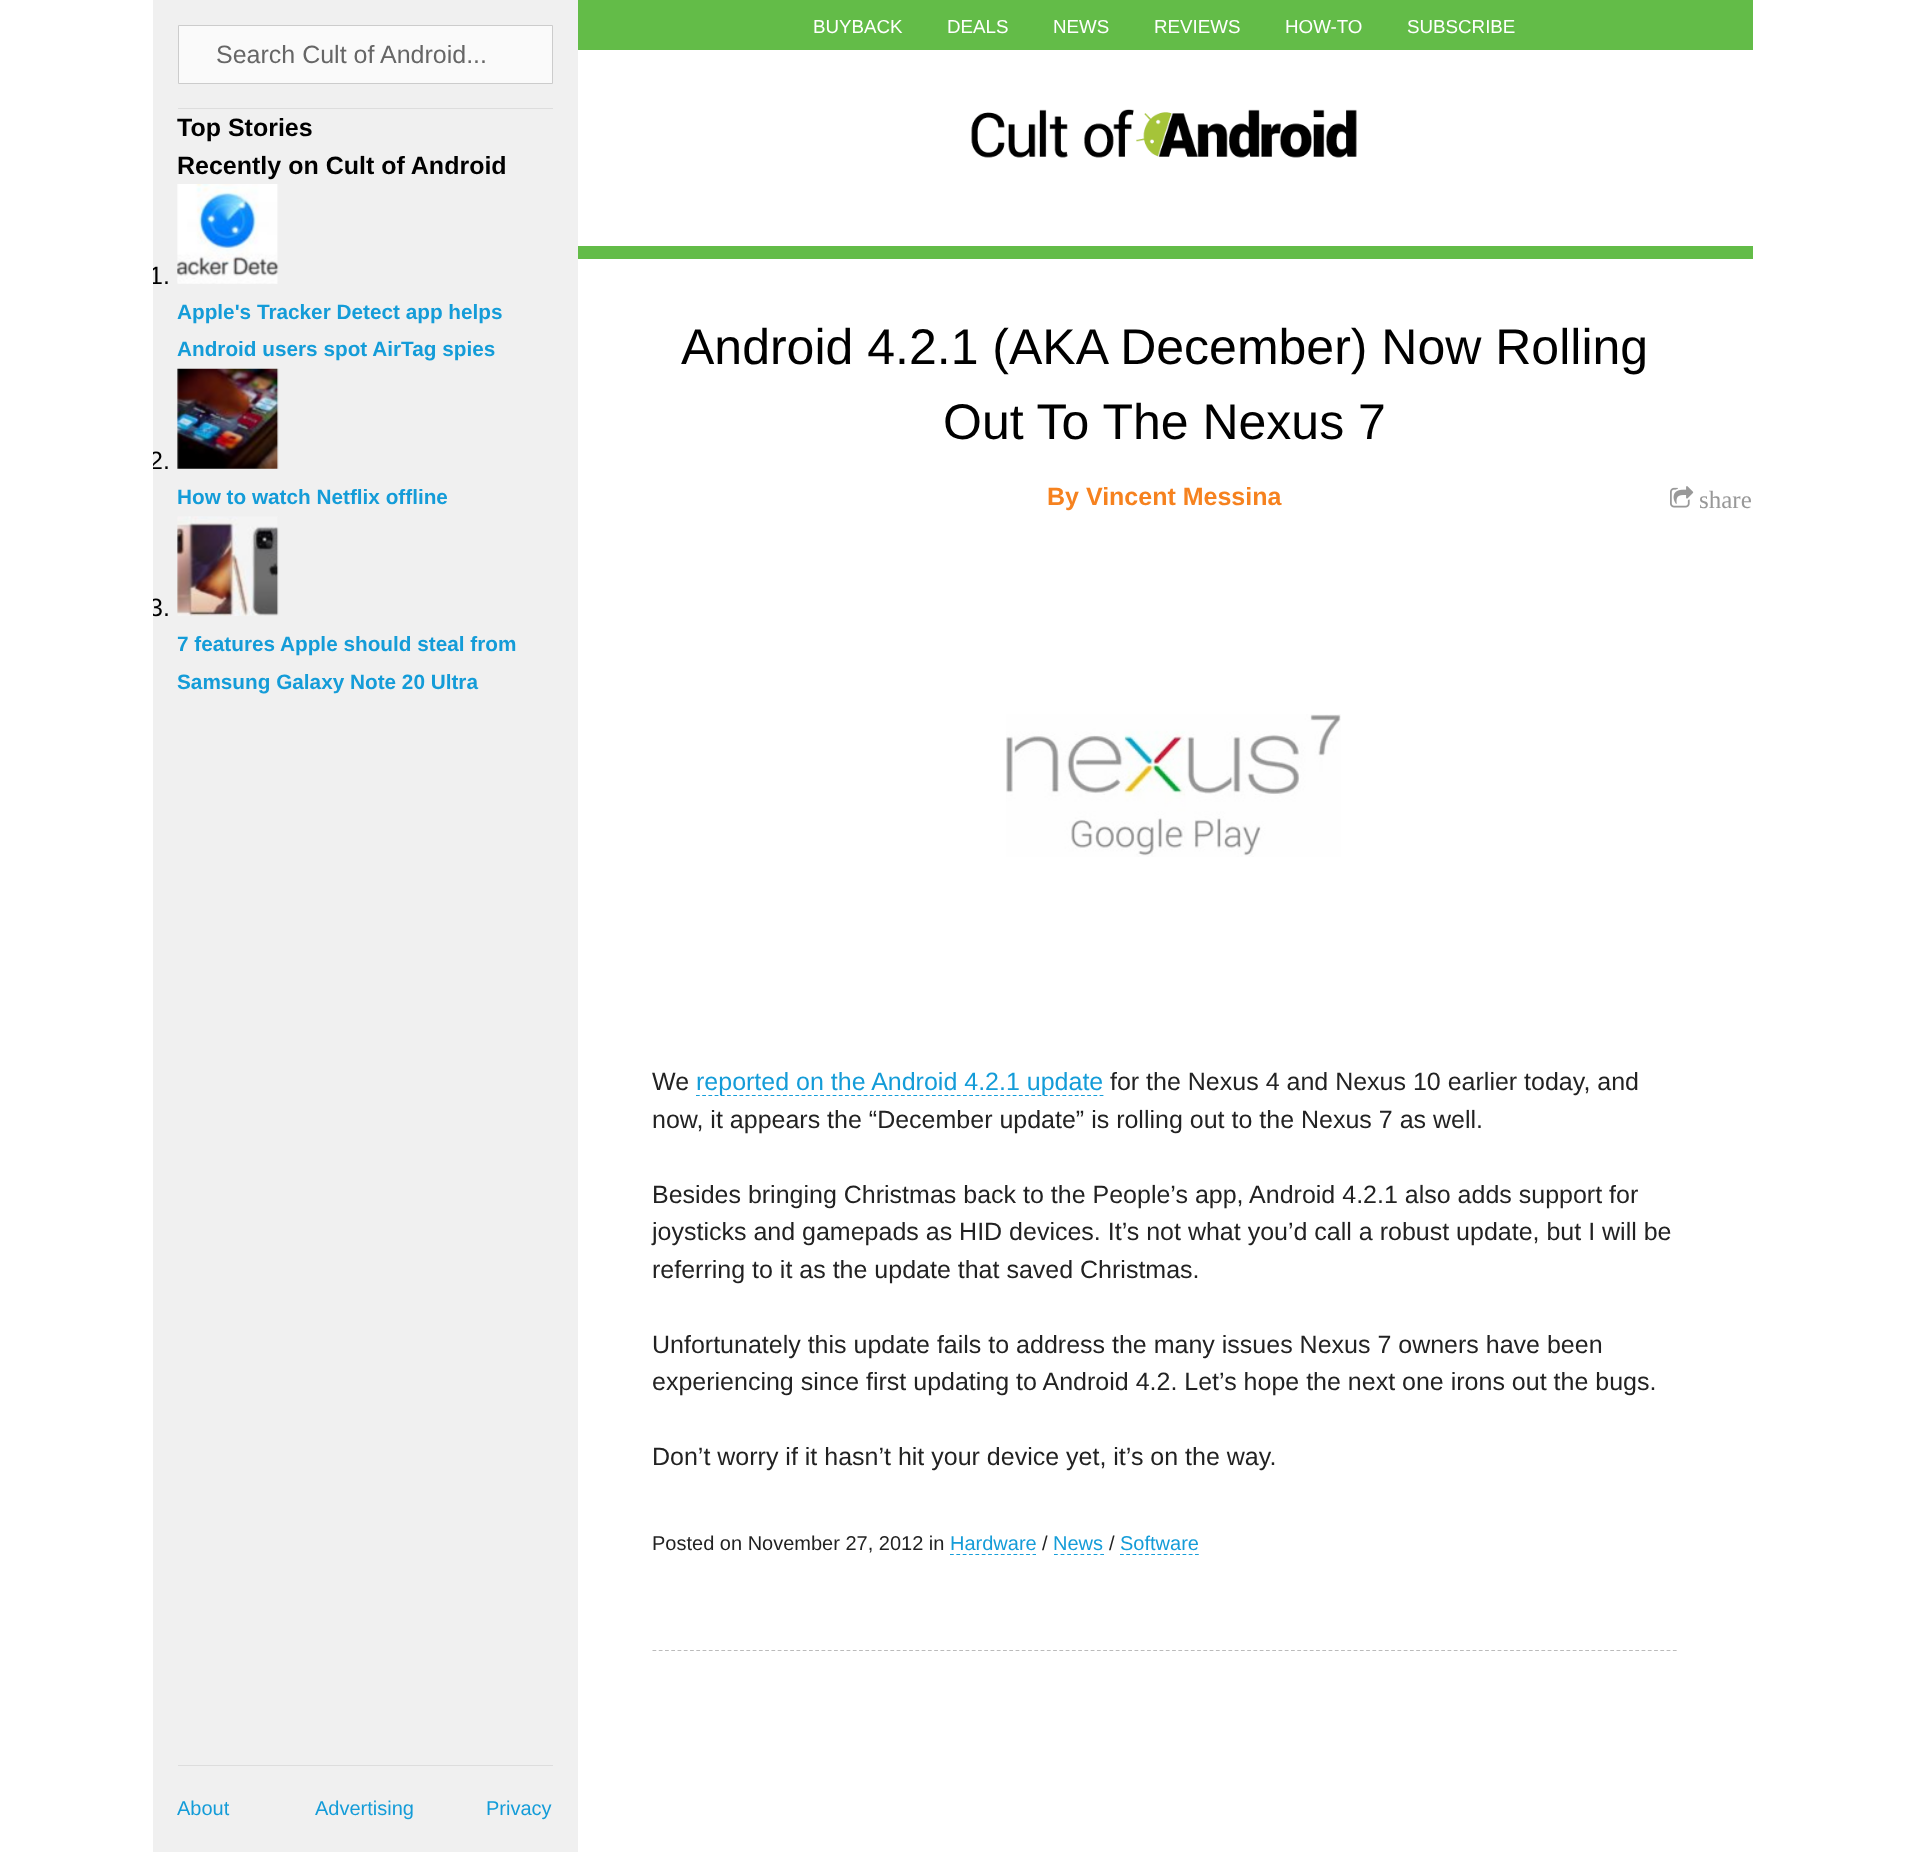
<svg xmlns="http://www.w3.org/2000/svg" width="1928" height="1852">
<style>
.a{font:18.75px Liberation Sans;fill:#fff}
.b{font:25px Liberation Sans;fill:#666}
.c{font:bold 25px Liberation Sans;fill:#000}
.d{font:25px Liberation Sans;fill:#000}
.e{font:bold 20.75px Liberation Sans;fill:#149cd8}
.f{font:20px Liberation Sans;fill:#149cd8}
.g{font:50px Liberation Sans;fill:#000}
.h{font:bold 25px Liberation Sans;fill:#f6821f}
.i{font:25px Liberation Serif;fill:#999}
.j{font:25px Liberation Sans;fill:#222}
.k{font:25px Liberation Sans;fill:#149cd8}
.l{font:20px Liberation Sans;fill:#222}
</style>
<defs>
<clipPath id="clip1"><path d="M153 0h425v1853H153z"/></clipPath>
</defs>
<rect width="100%" height="100%" fill="#fff"/>
<path fill="#63bc48" d="M578 0h1175v50H578z"/>
<image href="1.png" x="971" y="109" width="386" height="49"/>
<path fill="#f0f0f0" d="M153 0h425v1852H153z"/>
<path fill="#ddd" d="M178 108h375v1H178z"/>
<path fill="#fafafa" stroke="#ccc" d="M178.5 25.5h374v58H178.5z"/>
<image href="2.png" x="177" y="184" width="102" height="100"/>
<image href="3.png" x="177" y="368" width="102" height="101"/>
<image href="4.png" x="177" y="516" width="102" height="100"/>
<path fill="#ddd" d="M178 1765h375v1H178z"/>
<path fill="#63bc48" d="M578 246h1175v13H578z"/>
<image href="5.png" x="1670" y="486" width="24" height="22"/>
<image href="6.png" x="1006" y="714" width="335" height="143"/>
<path fill="none" stroke="#159dd9" stroke-width="1.2" stroke-dasharray="3.75 2.46" d="M696 1095.5h408"/>
<path fill="none" stroke="#159dd9" stroke-width="1.2" stroke-dasharray="3.75 2.6" d="M950 1554.5h86"/>
<path fill="none" stroke="#159dd9" stroke-width="1.2" stroke-dasharray="3.75 2.86" d="M1054 1554.5h50"/>
<path fill="none" stroke="#159dd9" stroke-width="1.2" stroke-dasharray="3.75 2.5" d="M1120 1554.5h79"/>
<path fill="none" stroke="#bbb" stroke-width="1.2" stroke-dasharray="3.75 2.51" d="M652.5 1650.5h1025"/>
<text class="a" x="813" y="33">BUYBACK</text>
<text class="a" x="947" y="33">DEALS</text>
<text class="a" x="1053" y="33">NEWS</text>
<text class="a" x="1154" y="33">REVIEWS</text>
<text class="a" x="1285" y="33">HOW-TO</text>
<text class="a" x="1407" y="33">SUBSCRIBE</text>
<text class="b" x="216" y="63">Search Cult of Android...</text>
<text class="c" x="177" y="136">Top Stories</text>
<text class="c" x="177" y="174">Recently on Cult of Android</text>
<g clip-path="url(#clip1)">
<text class="d" x="149" y="284">1.</text>
</g>
<text class="e" x="177" y="319">Apple's Tracker Detect app helps</text>
<text class="e" x="177" y="356">Android users spot AirTag spies</text>
<g clip-path="url(#clip1)">
<text class="d" x="149" y="469">2.</text>
</g>
<text class="e" x="177" y="504">How to watch Netflix offline</text>
<g clip-path="url(#clip1)">
<text class="d" x="149" y="616">3.</text>
</g>
<text class="e" x="177" y="651">7 features Apple should steal from</text>
<text class="e" x="177" y="689">Samsung Galaxy Note 20 Ultra</text>
<text class="f" x="177" y="1815">About</text>
<text class="f" x="315" y="1815">Advertising</text>
<text class="f" x="486" y="1815">Privacy</text>
<text class="g" x="681" y="364">Android 4.2.1 (AKA December) Now Rolling</text>
<text class="g" x="943" y="439">Out To The Nexus 7</text>
<text class="h" x="1047" y="505">By Vincent Messina</text>
<text class="i" x="1699" y="508">share</text>
<text class="j" x="652" y="1090">We</text>
<text class="k" x="696" y="1090">reported on the Android 4.2.1 update</text>
<text class="j" x="1110" y="1090">for the Nexus 4 and Nexus 10 earlier today, and</text>
<text class="j" x="652" y="1128">now, it appears the “December update” is rolling out to the Nexus 7 as well.</text>
<text class="j" x="652" y="1203">Besides bringing Christmas back to the People’s app, Android 4.2.1 also adds support for</text>
<text class="j" x="652" y="1240">joysticks and gamepads as HID devices. It’s not what you’d call a robust update, but I will be</text>
<text class="j" x="652" y="1278">referring to it as the update that saved Christmas.</text>
<text class="j" x="652" y="1353">Unfortunately this update fails to address the many issues Nexus 7 owners have been</text>
<text class="j" x="652" y="1390">experiencing since first updating to Android 4.2. Let’s hope the next one irons out the bugs.</text>
<text class="j" x="652" y="1465">Don’t worry if it hasn’t hit your device yet, it’s on the way.</text>
<text class="l" x="652" y="1550">Posted on November 27, 2012 in</text>
<text class="f" x="950" y="1550">Hardware</text>
<text class="l" x="1042" y="1550">/</text>
<text class="f" x="1053" y="1550">News</text>
<text class="l" x="1109" y="1550">/</text>
<text class="f" x="1120" y="1550">Software</text>
</svg>
